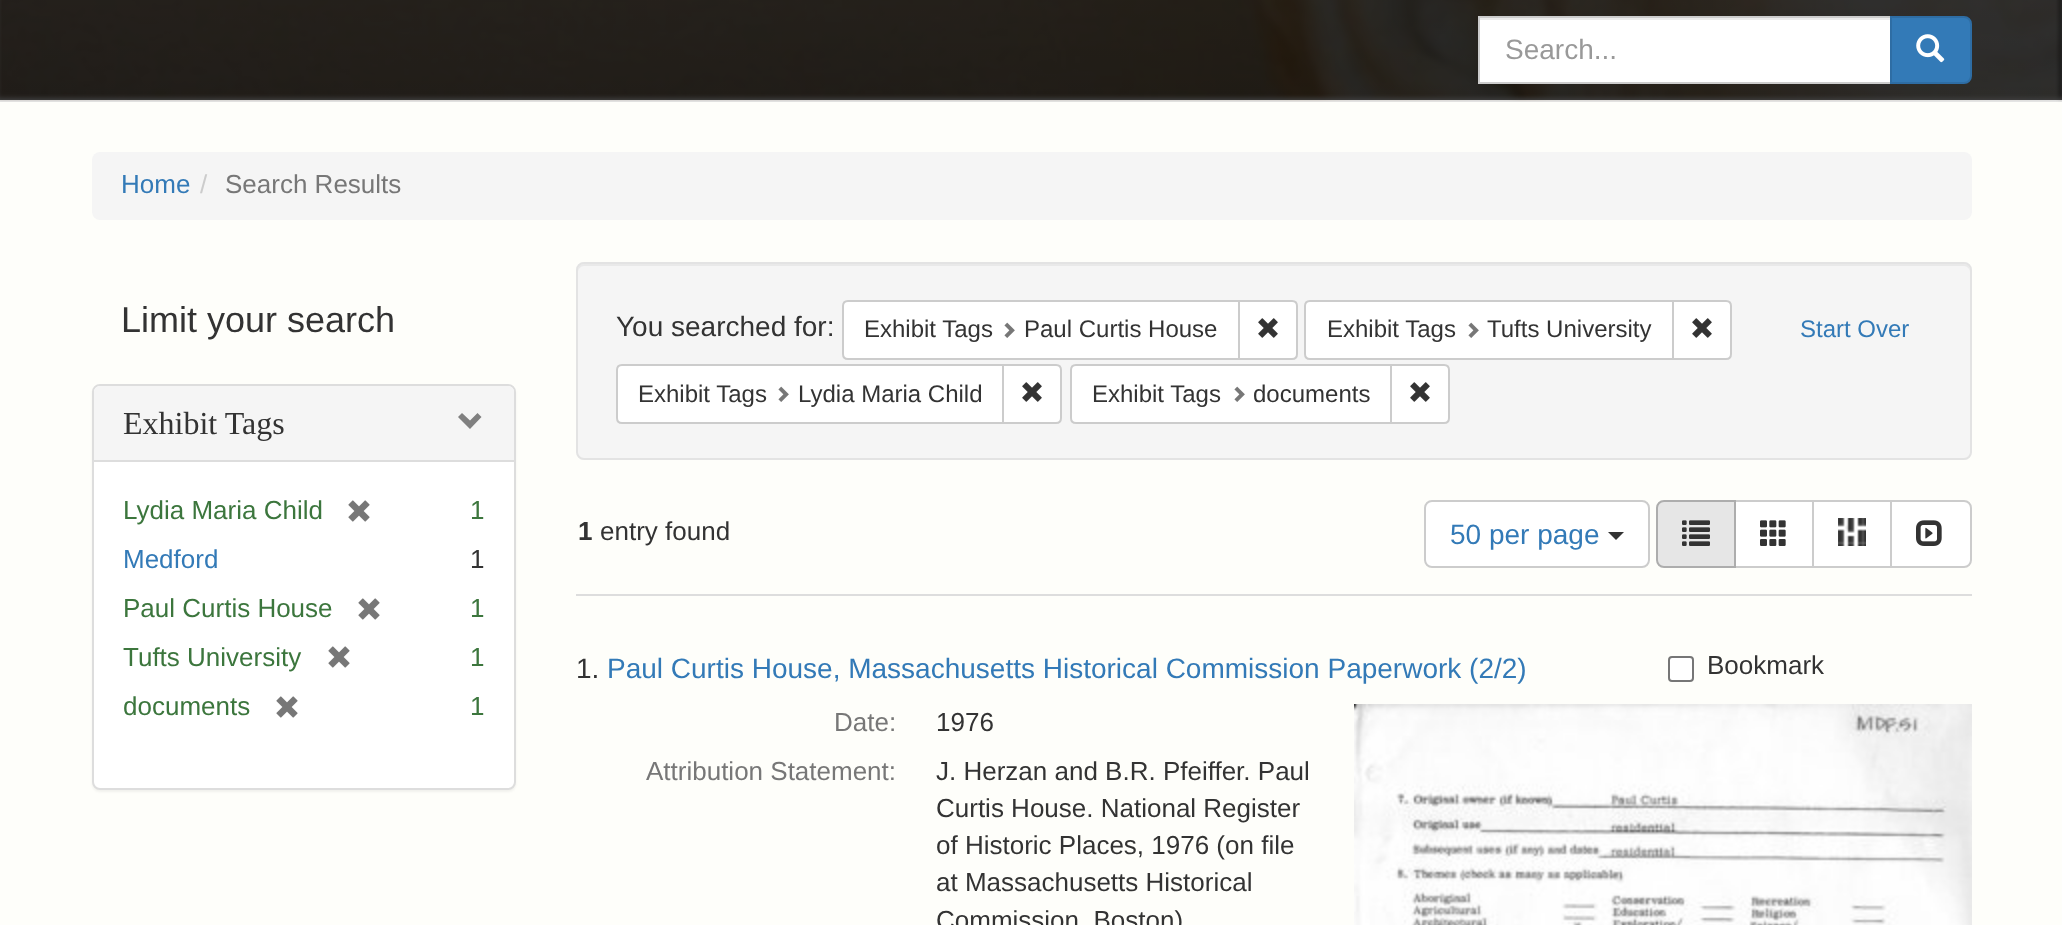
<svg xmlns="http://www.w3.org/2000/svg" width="2062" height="925">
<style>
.a{font:28px Liberation Sans;fill:#999}
.b{font:26px Liberation Sans;fill:#337ab7}
.c{font:26px Liberation Sans;fill:#ccc}
.d{font:26px Liberation Sans;fill:#777}
.e{font:36px Liberation Sans;fill:#333}
.f{font:32px Liberation Serif;fill:#333}
.g{font:26px Liberation Sans;fill:#3c763d}
.h{font:26px Liberation Sans;fill:#333}
.i{font:28px Liberation Sans;fill:#333}
.j{font:24px Liberation Sans;fill:#333}
.k{font:24px Liberation Sans;fill:#337ab7}
.l{font:bold 26px Liberation Sans;fill:#333}
.m{font:28px Liberation Sans;fill:#337ab7}
</style>
<defs>
<linearGradient id="g1" gradientUnits="userSpaceOnUse" x1="1031" y1="-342" x2="1031" y2="100"><stop offset="0" stop-color="#000" stop-opacity="0"/><stop offset="0.5" stop-color="#000" stop-opacity="0.4"/><stop offset="1" stop-color="#000" stop-opacity="0.5"/></linearGradient>
</defs>
<rect width="100%" height="100%" fill="#fefefa"/>
<path fill="#7b7b7b" d="M0 0h2062v100H0z"/>
<path fill="#e7e7e7" d="M0 100h2062v2H0z"/>
<image href="1.png" x="0" y="0" width="2062" height="102"/>
<path fill="#000" filter="blur(2px)" d="M2060 -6h2v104H2060z"/>
<path fill="url(#g1)" d="M0 0h2062v100H0z"/>
<path fill="#fff" d="M1480 20h410v62H1480z"/>
<path fill="#ececec" d="M1480 18h410v2H1480z"/>
<path fill="none" stroke="#ccc" stroke-width="2" d="M1479 17h412v66H1479z"/>
<path fill="#337ab7" stroke="#2e6da4" stroke-width="2" d="M1891 17h73c4 0 7 3 7 7v52c0 4-3 7-7 7h-73z"/>
<image href="2.png" x="1916" y="34" width="29" height="29"/>
<rect fill="#f5f5f5" x="92" y="152" width="1880" height="68" rx="8"/>
<rect fill="#0000000d" filter="blur(1px)" x="92" y="386" width="424" height="406" rx="8"/>
<rect fill="#fff" stroke="#ddd" stroke-width="2" x="93" y="385" width="422" height="404" rx="7"/>
<path fill="#f5f5f5" d="M100 386h408c3.5 0 6 2.5 6 6v68h-420v-68c0-3.5 2.5-6 6-6z"/>
<path fill="#808080" d="M481.5 417l-11.5 12l-12-12l4-4l8 7.5l7.5-7.5z"/>
<path fill="#ddd" d="M94 460h420v2H94z"/>
<image href="3.png" x="348" y="500" width="22" height="22"/>
<image href="3.png" x="358" y="598" width="22" height="22"/>
<image href="3.png" x="328" y="646" width="22" height="22"/>
<image href="3.png" x="276" y="696" width="22" height="22"/>
<rect fill="#f5f5f5" x="576" y="262" width="1396" height="198" rx="8"/>
<path fill="#e9e9e9" d="M584 266h1380c3 0 6 3 6 6c0-4-1-8-6-8h-1380c-5 0-6 4-6 8c0-3 3-6 6-6z"/>
<rect fill="none" stroke="#e3e3e3" stroke-width="2" x="577" y="263" width="1394" height="196" rx="7"/>
<path fill="#fff" stroke="#ccc" stroke-width="2" d="M848 301h391v58h-391c-3 0-5-2-5-5v-48c0-3 2-5 5-5z"/>
<image href="4.png" x="1004" y="322" width="11" height="16"/>
<path fill="#fff" stroke="#ccc" stroke-width="2" d="M1239 301h53c3 0 5 2 5 5v48c0 3-2 5-5 5h-53z"/>
<image href="5.png" x="1258" y="318" width="20" height="20"/>
<path fill="#fff" stroke="#ccc" stroke-width="2" d="M1310 301h363v58h-363c-3 0-5-2-5-5v-48c0-3 2-5 5-5z"/>
<image href="4.png" x="1468" y="322" width="11" height="16"/>
<path fill="#fff" stroke="#ccc" stroke-width="2" d="M1673 301h53c3 0 5 2 5 5v48c0 3-2 5-5 5h-53z"/>
<image href="5.png" x="1692" y="318" width="20" height="20"/>
<path fill="#fff" stroke="#ccc" stroke-width="2" d="M622 365h381v58h-381c-3 0-5-2-5-5v-48c0-3 2-5 5-5z"/>
<image href="4.png" x="778" y="386" width="11" height="16"/>
<path fill="#fff" stroke="#ccc" stroke-width="2" d="M1003 365h53c3 0 5 2 5 5v48c0 3-2 5-5 5h-53z"/>
<image href="5.png" x="1022" y="382" width="20" height="20"/>
<path fill="#fff" stroke="#ccc" stroke-width="2" d="M1076 365h315v58h-315c-3 0-5-2-5-5v-48c0-3 2-5 5-5z"/>
<image href="4.png" x="1234" y="386" width="11" height="16"/>
<path fill="#fff" stroke="#ccc" stroke-width="2" d="M1391 365h53c3 0 5 2 5 5v48c0 3-2 5-5 5h-53z"/>
<image href="5.png" x="1410" y="382" width="20" height="20"/>
<path fill="#ddd" d="M576 594h1396v2H576z"/>
<rect fill="#fff" stroke="#ccc" stroke-width="2" x="1425" y="501" width="224" height="66" rx="7"/>
<path fill="#333" d="M1608 532h16l-8 8z"/>
<path fill="#fff" stroke="#ccc" stroke-width="2" d="M1735 501h78v66H1735z"/>
<path fill="#e6e6e6" stroke="#adadad" stroke-width="2" d="M1664 501h71v66h-71c-4 0-7-3-7-7v-52c0-4 3-7 7-7z"/>
<image href="6.png" x="1682" y="520" width="28" height="26"/>
<image href="7.png" x="1760" y="520" width="26" height="26"/>
<path fill="#fff" stroke="#ccc" stroke-width="2" d="M1813 501h78v66H1813z"/>
<image href="8.png" x="1838" y="518" width="28" height="28"/>
<path fill="#fff" stroke="#ccc" stroke-width="2" d="M1891 501h73c4 0 7 3 7 7v52c0 4-3 7-7 7h-73z"/>
<image href="9.png" x="1916" y="520" width="26" height="26"/>
<rect fill="#fff" stroke="#767676" stroke-width="2" x="1669" y="657" width="24" height="24" rx="3"/>
<image href="10.png" x="1354" y="704" width="618" height="221"/>
<text class="a" x="1505" y="59">Search...</text>
<text class="b" x="121" y="193">Home</text>
<text class="c" x="200" y="193">/</text>
<text class="d" x="225" y="193">Search Results</text>
<text class="e" x="121" y="332">Limit your search</text>
<text class="f" x="123" y="434">Exhibit Tags</text>
<text class="g" x="123" y="519">Lydia Maria Child</text>
<text class="g" x="470" y="519">1</text>
<text class="b" x="123" y="568">Medford</text>
<text class="h" x="470" y="568">1</text>
<text class="g" x="123" y="617">Paul Curtis House</text>
<text class="g" x="470" y="617">1</text>
<text class="g" x="123" y="666">Tufts University</text>
<text class="g" x="470" y="666">1</text>
<text class="g" x="123" y="715">documents</text>
<text class="g" x="470" y="715">1</text>
<text class="i" x="616" y="336">You searched for:</text>
<text class="j" x="864" y="337">Exhibit Tags</text>
<text class="j" x="1024" y="337">Paul Curtis House</text>
<text class="j" x="1327" y="337">Exhibit Tags</text>
<text class="j" x="1487" y="337">Tufts University</text>
<text class="k" x="1800" y="337">Start Over</text>
<text class="j" x="638" y="402">Exhibit Tags</text>
<text class="j" x="798" y="402">Lydia Maria Child</text>
<text class="j" x="1092" y="402">Exhibit Tags</text>
<text class="j" x="1253" y="402">documents</text>
<text class="l" x="578" y="540">1</text>
<text class="h" x="600" y="540">entry found</text>
<text class="m" x="1450" y="544">50 per page</text>
<text class="i" x="576" y="678">1.</text>
<text class="m" x="607" y="678">Paul Curtis House, Massachusetts Historical Commission Paperwork (2/2)</text>
<text class="h" x="1707" y="674">Bookmark</text>
<text class="d" x="834" y="731">Date:</text>
<text class="h" x="936" y="731">1976</text>
<text class="d" x="646" y="780">Attribution Statement:</text>
<text class="h" x="936" y="780">J. Herzan and B.R. Pfeiffer. Paul</text>
<text class="h" x="936" y="817">Curtis House. National Register</text>
<text class="h" x="936" y="854">of Historic Places, 1976 (on file</text>
<text class="h" x="936" y="891">at Massachusetts Historical</text>
<text class="h" x="936" y="929">Commission, Boston)</text>
</svg>
